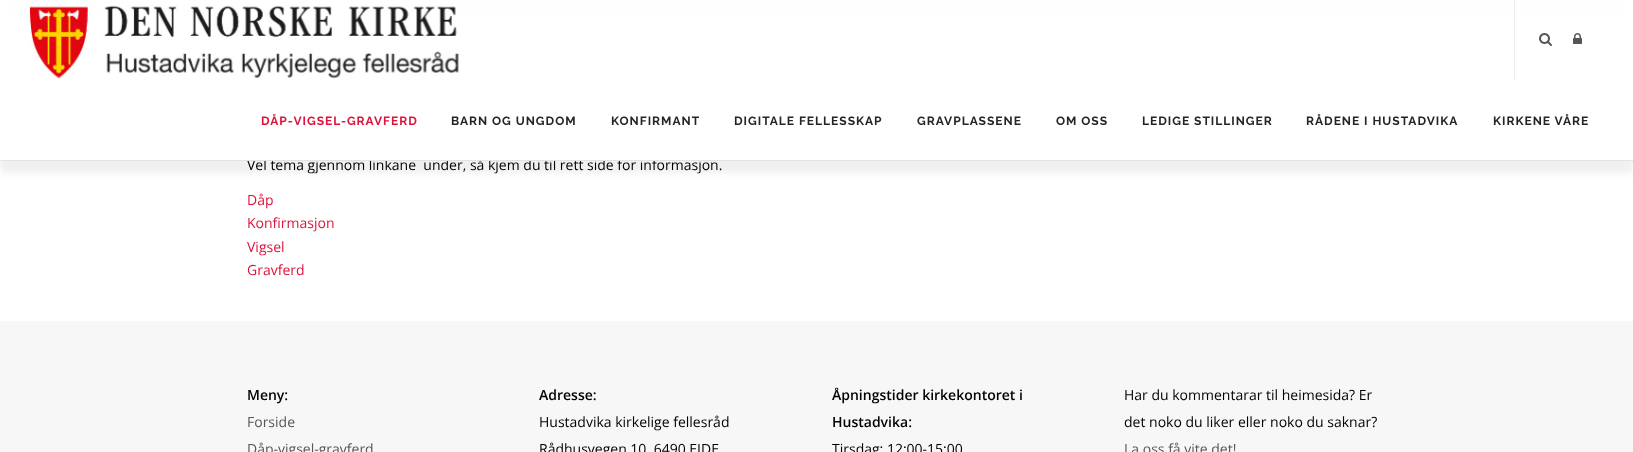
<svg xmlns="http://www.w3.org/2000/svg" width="1633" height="452">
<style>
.a{font:14px Open Sans;fill:#000}
.b{font:bold 12px Raleway;letter-spacing:1px;fill:#252525}
.c{font:bold 12px Raleway;letter-spacing:1px;fill:#dc143c}
.d{font:14px Open Sans;fill:#dc143c}
.e{font:600 14px Open Sans;fill:#000}
.f{font:14px Open Sans;fill:#565656}
</style>
<rect width="100%" height="100%" fill="#fff"/>
<path fill="#0000000f" filter="blur(3px)" d="M0 12h1633v161H0z"/>
<path fill="#f7f7f7" d="M0 321h1633v131H0z"/>
<text class="a" xml:space="preserve" x="247" y="170">Vel tema gjennom linkane  under, så kjem du til rett side for informasjon.</text>
<path fill="#fff" d="M0 9h1633v151H0z"/>
<image href="3.png" x="1573" y="33" width="9" height="11"/>
<image href="2.png" x="1539" y="33" width="13" height="13"/>
<path fill="#eee" d="M1514 0h1v80H1514z"/>
<image href="1.png" x="30" y="5" width="429" height="74"/>
<text class="b" x="1493" y="125">KIRKENE VÅRE</text>
<text class="b" x="1306" y="125">RÅDENE I HUSTADVIKA</text>
<text class="b" x="1142" y="125">LEDIGE STILLINGER</text>
<text class="b" x="1056" y="125">OM OSS</text>
<text class="b" x="917" y="125">GRAVPLASSENE</text>
<text class="b" x="734" y="125">DIGITALE FELLESSKAP</text>
<text class="b" x="611" y="125">KONFIRMANT</text>
<text class="b" x="451" y="125">BARN OG UNGDOM</text>
<text class="c" x="261" y="125">DÅP-VIGSEL-GRAVFERD</text>
<path fill="#e3e3e3" d="M0 160h1633v1H0z"/>
<text class="d" x="247" y="205">Dåp</text>
<text class="d" x="247" y="228">Konfirmasjon</text>
<text class="d" x="247" y="252">Vigsel</text>
<text class="d" x="247" y="275">Gravferd</text>
<text class="e" x="247" y="400">Meny:</text>
<text class="f" x="247" y="427">Forside</text>
<text class="f" x="247" y="454">Dåp-vigsel-gravferd</text>
<text class="e" x="539" y="400">Adresse:</text>
<text class="a" x="539" y="427">Hustadvika kirkelige fellesråd</text>
<text class="a" x="539" y="454">Rådhusvegen 10, 6490 EIDE</text>
<text class="e" x="832" y="400">Åpningstider kirkekontoret i</text>
<text class="e" x="832" y="427">Hustadvika:</text>
<text class="a" x="832" y="454">Tirsdag: 12:00-15:00</text>
<text class="a" x="1124" y="400">Har du kommentarar til heimesida? Er</text>
<text class="a" x="1124" y="427">det noko du liker eller noko du saknar?</text>
<text class="f" x="1124" y="454">La oss få vite det!</text>
</svg>
